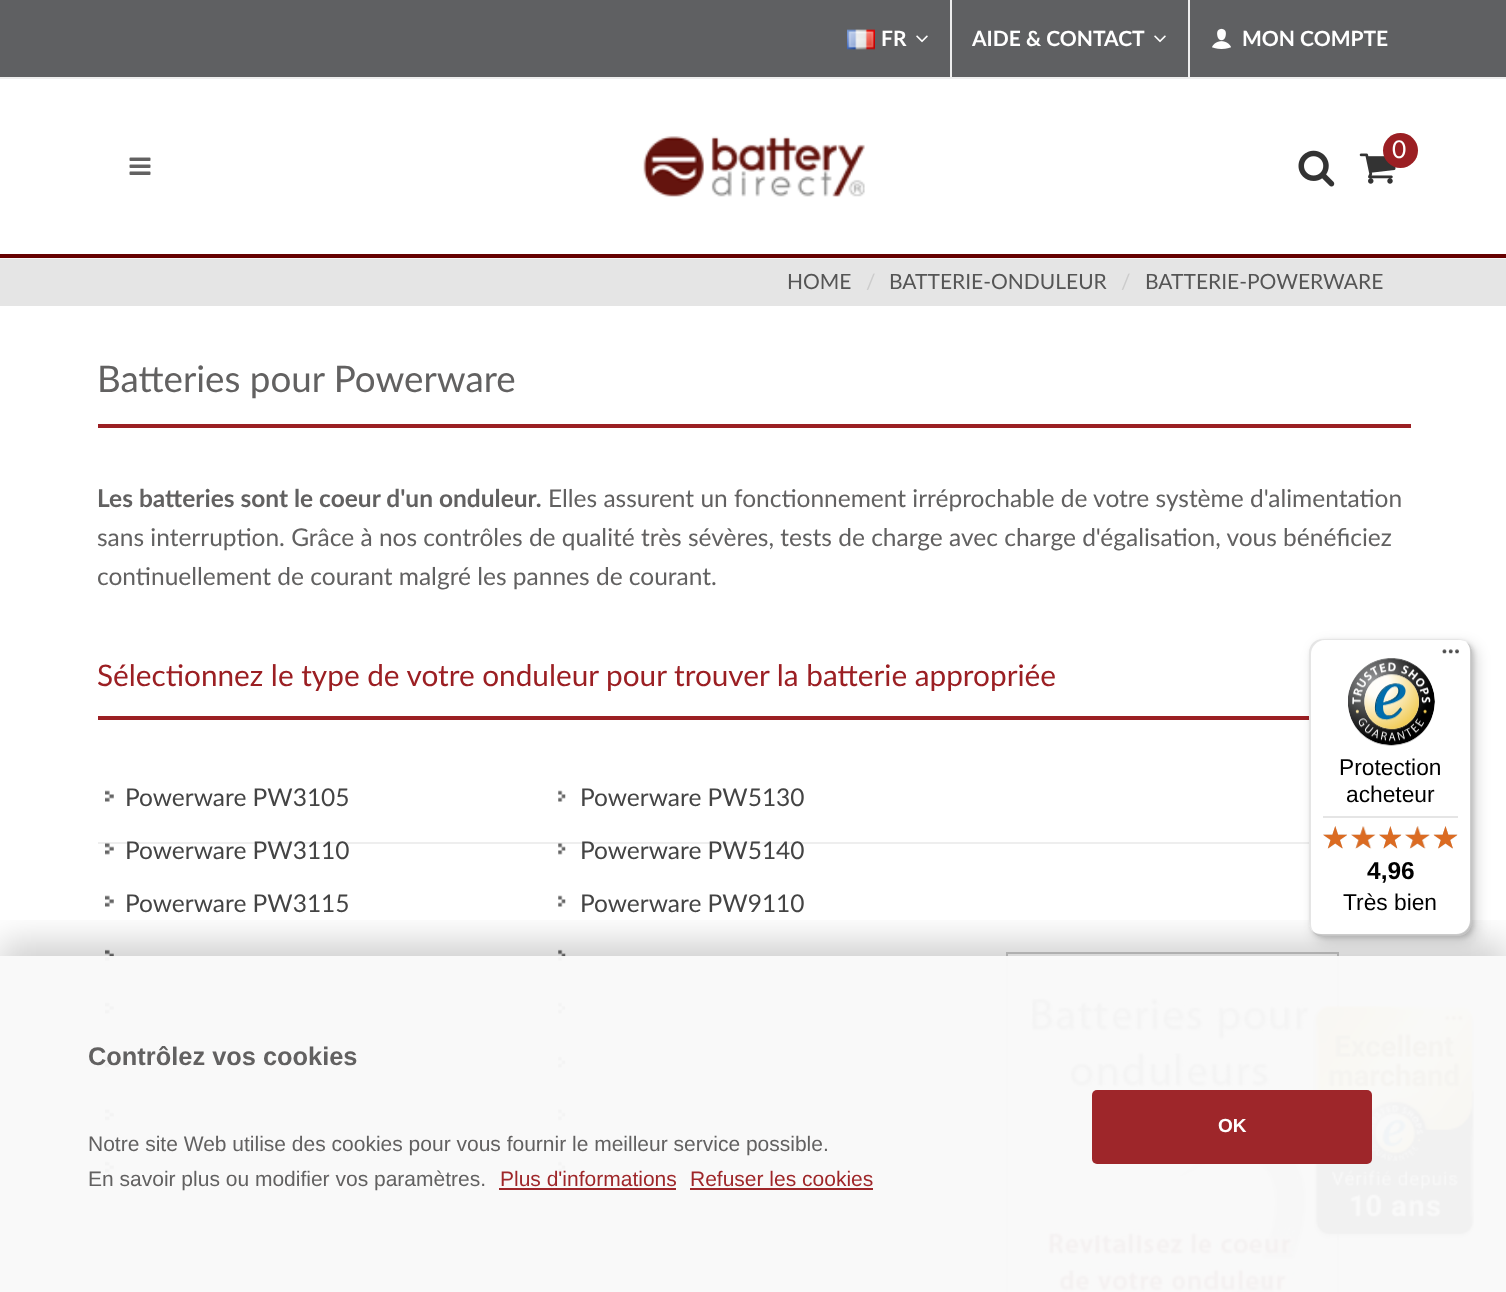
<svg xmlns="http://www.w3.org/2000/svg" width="1506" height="1292">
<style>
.a{font:bold 21px Lato;fill:#fff}
.b{font:24.5px Lato;fill:#fff}
.c{font:21px Lato;fill:#555}
.d{font:21px Lato;fill:#ccc}
.e{font:36.75px Lato;fill:#626161}
.f{font:bold 24.5px Lato;fill:#626161}
.g{font:24.5px Lato;fill:#626161}
.h{font:29.75px Lato;fill:#9b1f23}
.i{font:24.5px Lato;fill:#444}
.j{font:22.75px Liberation Sans;fill:#000}
.k{font:bold 24.5px Liberation Sans;fill:#000}
.l{font:bold 25.4px Liberation Sans;fill:#626161}
.m{font:bold 19px Liberation Sans;fill:#fff}
.n{font:21px Liberation Sans;fill:#626161}
.o{font:21px Liberation Sans;fill:#9e2629}
</style>
<defs>
<clipPath id="clip1"><path d="M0 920h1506v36H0z"/></clipPath>
</defs>
<rect width="100%" height="100%" fill="#fff"/>
<path fill="#5f6062" d="M0 0h1506v77H0z"/>
<path fill="#eee" d="M0 77h1506v2H0z"/>
<image href="1.png" x="847" y="29" width="28" height="21"/>
<image href="2.png" x="916" y="35" width="12" height="8"/>
<path fill="#eee" d="M950 0h2v77H950z"/>
<image href="2.png" x="1154" y="35" width="12" height="8"/>
<path fill="#eee" d="M1188 0h2v77H1188z"/>
<image href="3.png" x="1212" y="28" width="19" height="21"/>
<path fill="#f5f5f5" d="M0 258h1506v1H0z"/>
<path fill="#600" d="M0 254h1506v4H0z"/>
<image href="4.png" x="643" y="136" width="222" height="61"/>
<image href="5.png" x="1298" y="150" width="37" height="37"/>
<image href="6.png" x="1359" y="153" width="37" height="31"/>
<circle fill="#9b1f23" cx="1400.5" cy="150.5" r="17.5"/>
<image href="7.png" x="129" y="157" width="22" height="18"/>
<path fill="#e5e5e5" d="M0 259h1506v47H0z"/>
<path fill="#9b1f23" d="M98 424h1313v4H98z"/>
<path fill="#eee" d="M98 842h1211v2H98z"/>
<path fill="#9b1f23" d="M98 716h1211v4H98z"/>
<image href="8.png" x="105" y="790" width="9" height="12"/>
<image href="9.png" x="105" y="843" width="9" height="12"/>
<image href="8.png" x="105" y="895" width="9" height="12"/>
<image href="10.png" x="105" y="949" width="9" height="13"/>
<image href="11.png" x="105" y="1002" width="9" height="12"/>
<image href="8.png" x="105" y="1056" width="9" height="12"/>
<image href="12.png" x="105" y="1109" width="9" height="12"/>
<image href="8.png" x="105" y="1161" width="9" height="12"/>
<image href="13.png" x="558" y="790" width="8" height="12"/>
<image href="14.png" x="558" y="843" width="8" height="12"/>
<image href="13.png" x="558" y="895" width="8" height="12"/>
<image href="15.png" x="558" y="949" width="8" height="13"/>
<image href="16.png" x="558" y="1002" width="8" height="12"/>
<image href="13.png" x="558" y="1056" width="8" height="12"/>
<image href="17.png" x="558" y="1109" width="8" height="12"/>
<image href="13.png" x="558" y="1161" width="8" height="12"/>
<path fill="none" stroke="#ccc" stroke-width="2" d="M1007 953h331v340H1007z"/>
<image href="18.png" x="1015" y="960" width="315" height="332"/>
<image href="31.png" x="1312" y="1005" width="165" height="235"/>
<g clip-path="url(#clip1)">
<path fill="#00000030" filter="blur(17.5px)" d="M0 942h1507v337H0z"/>
</g>
<path fill="#f9f9f9f7" d="M0 956h1506v336H0z"/>
<rect fill="#00000026" filter="blur(7px)" x="1314" y="644" width="163" height="298" rx="14"/>
<rect fill="#00000026" filter="blur(2px)" x="1311" y="641" width="163" height="297" rx="14"/>
<rect fill="#fff" x="1309" y="639" width="163" height="297" rx="14"/>
<path fill="#0000001a" d="M1325 640h135c2 0 5 1 7 2c-3-2-6-3-9-3h-135c-8 0-14 6-14 14v269c0 4 2 8 5 10c-2-2-3-5-3-8v-270c0-7 6-14 14-14z"/>
<path fill="#00000033" d="M1312 930c2 4 6 6 11 6h135c8 0 14-6 14-14v-269c0-4-2-8-5-10c2 2 3 5 3 8v269c0 8-6 14-14 14h-135c-3 0-7-1-9-4z"/>
<path fill="#32323233" d="M1314 932c2 3 5 4 9 4h135c8 0 14-6 14-14v-269c0-5-2-9-6-11c3 2 5 6 5 10v269c0 8-7 14-14 14h-135c-3 0-6-1-8-3z"/>
<path fill="#ffffff4d" d="M1314 932c2 3 5 4 9 4h135c8 0 14-6 14-14v-269c0-4-1-7-4-9c2 2 3 5 3 8v269c0 8-6 14-14 14h-135c-3 0-6-1-8-3z"/>
<image href="19.png" x="1442" y="649" width="17" height="5"/>
<image href="20.png" x="1348" y="658" width="87" height="88"/>
<path fill="#e5e5e5" d="M1323 816h135v2H1323z"/>
<image href="21.png" x="1323" y="826" width="24" height="23"/>
<image href="22.png" x="1351" y="826" width="24" height="23"/>
<image href="23.png" x="1379" y="826" width="22" height="23"/>
<image href="24.png" x="1405" y="826" width="25" height="23"/>
<image href="25.png" x="1434" y="826" width="23" height="23"/>
<image href="26.png" x="1323" y="826" width="24" height="23"/>
<image href="27.png" x="1351" y="826" width="25" height="23"/>
<image href="28.png" x="1379" y="826" width="23" height="23"/>
<image href="29.png" x="1405" y="826" width="25" height="23"/>
<image href="30.png" x="1433" y="826" width="25" height="23"/>
<rect fill="#9b1f23f7" x="1092" y="1090" width="280" height="74" rx="5"/>
<path fill="#9e262a" d="M499 1188h177v2H499z"/>
<path fill="#9e262a" d="M690 1188h183v2H690z"/>
<text class="a" x="881" y="46">FR</text>
<text class="a" x="972" y="46">AIDE &amp; CONTACT</text>
<text class="a" x="1242" y="46">MON COMPTE</text>
<text class="b" x="1392" y="158">0</text>
<text class="c" x="787" y="289">HOME</text>
<text class="d" x="866" y="289">/</text>
<text class="c" x="889" y="289">BATTERIE-ONDULEUR</text>
<text class="d" x="1121" y="289">/</text>
<text class="c" x="1145" y="289">BATTERIE-POWERWARE</text>
<text class="e" x="97" y="392">Batteries pour Powerware</text>
<text class="f" x="97" y="507">Les batteries sont le coeur d'un onduleur.</text>
<text class="g" x="548" y="507">Elles assurent un fonctionnement irréprochable de votre système d'alimentation</text>
<text class="g" x="97" y="546">sans interruption. Grâce à nos contrôles de qualité très sévères, tests de charge avec charge d'égalisation, vous bénéficiez</text>
<text class="g" x="97" y="585">continuellement de courant malgré les pannes de courant.</text>
<text class="h" x="97" y="686">Sélectionnez le type de votre onduleur pour trouver la batterie appropriée</text>
<text class="i" x="125" y="806">Powerware PW3105</text>
<text class="i" x="125" y="859">Powerware PW3110</text>
<text class="i" x="125" y="912">Powerware PW3115</text>
<text class="i" x="580" y="806">Powerware PW5130</text>
<text class="i" x="580" y="859">Powerware PW5140</text>
<text class="i" x="580" y="912">Powerware PW9110</text>
<text class="j" x="1339" y="775">Protection</text>
<text class="j" x="1346" y="802">acheteur</text>
<text class="k" x="1367" y="879">4,96</text>
<text class="j" x="1343" y="910">Très bien</text>
<text class="l" x="88" y="1065">Contrôlez vos cookies</text>
<text class="m" x="1218" y="1132">OK</text>
<text class="n" x="88" y="1151">Notre site Web utilise des cookies pour vous fournir le meilleur service possible.</text>
<text class="n" x="88" y="1186">En savoir plus ou modifier vos paramètres.</text>
<text class="o" x="500" y="1186">Plus d'informations</text>
<text class="o" x="690" y="1186">Refuser les cookies</text>
</svg>
